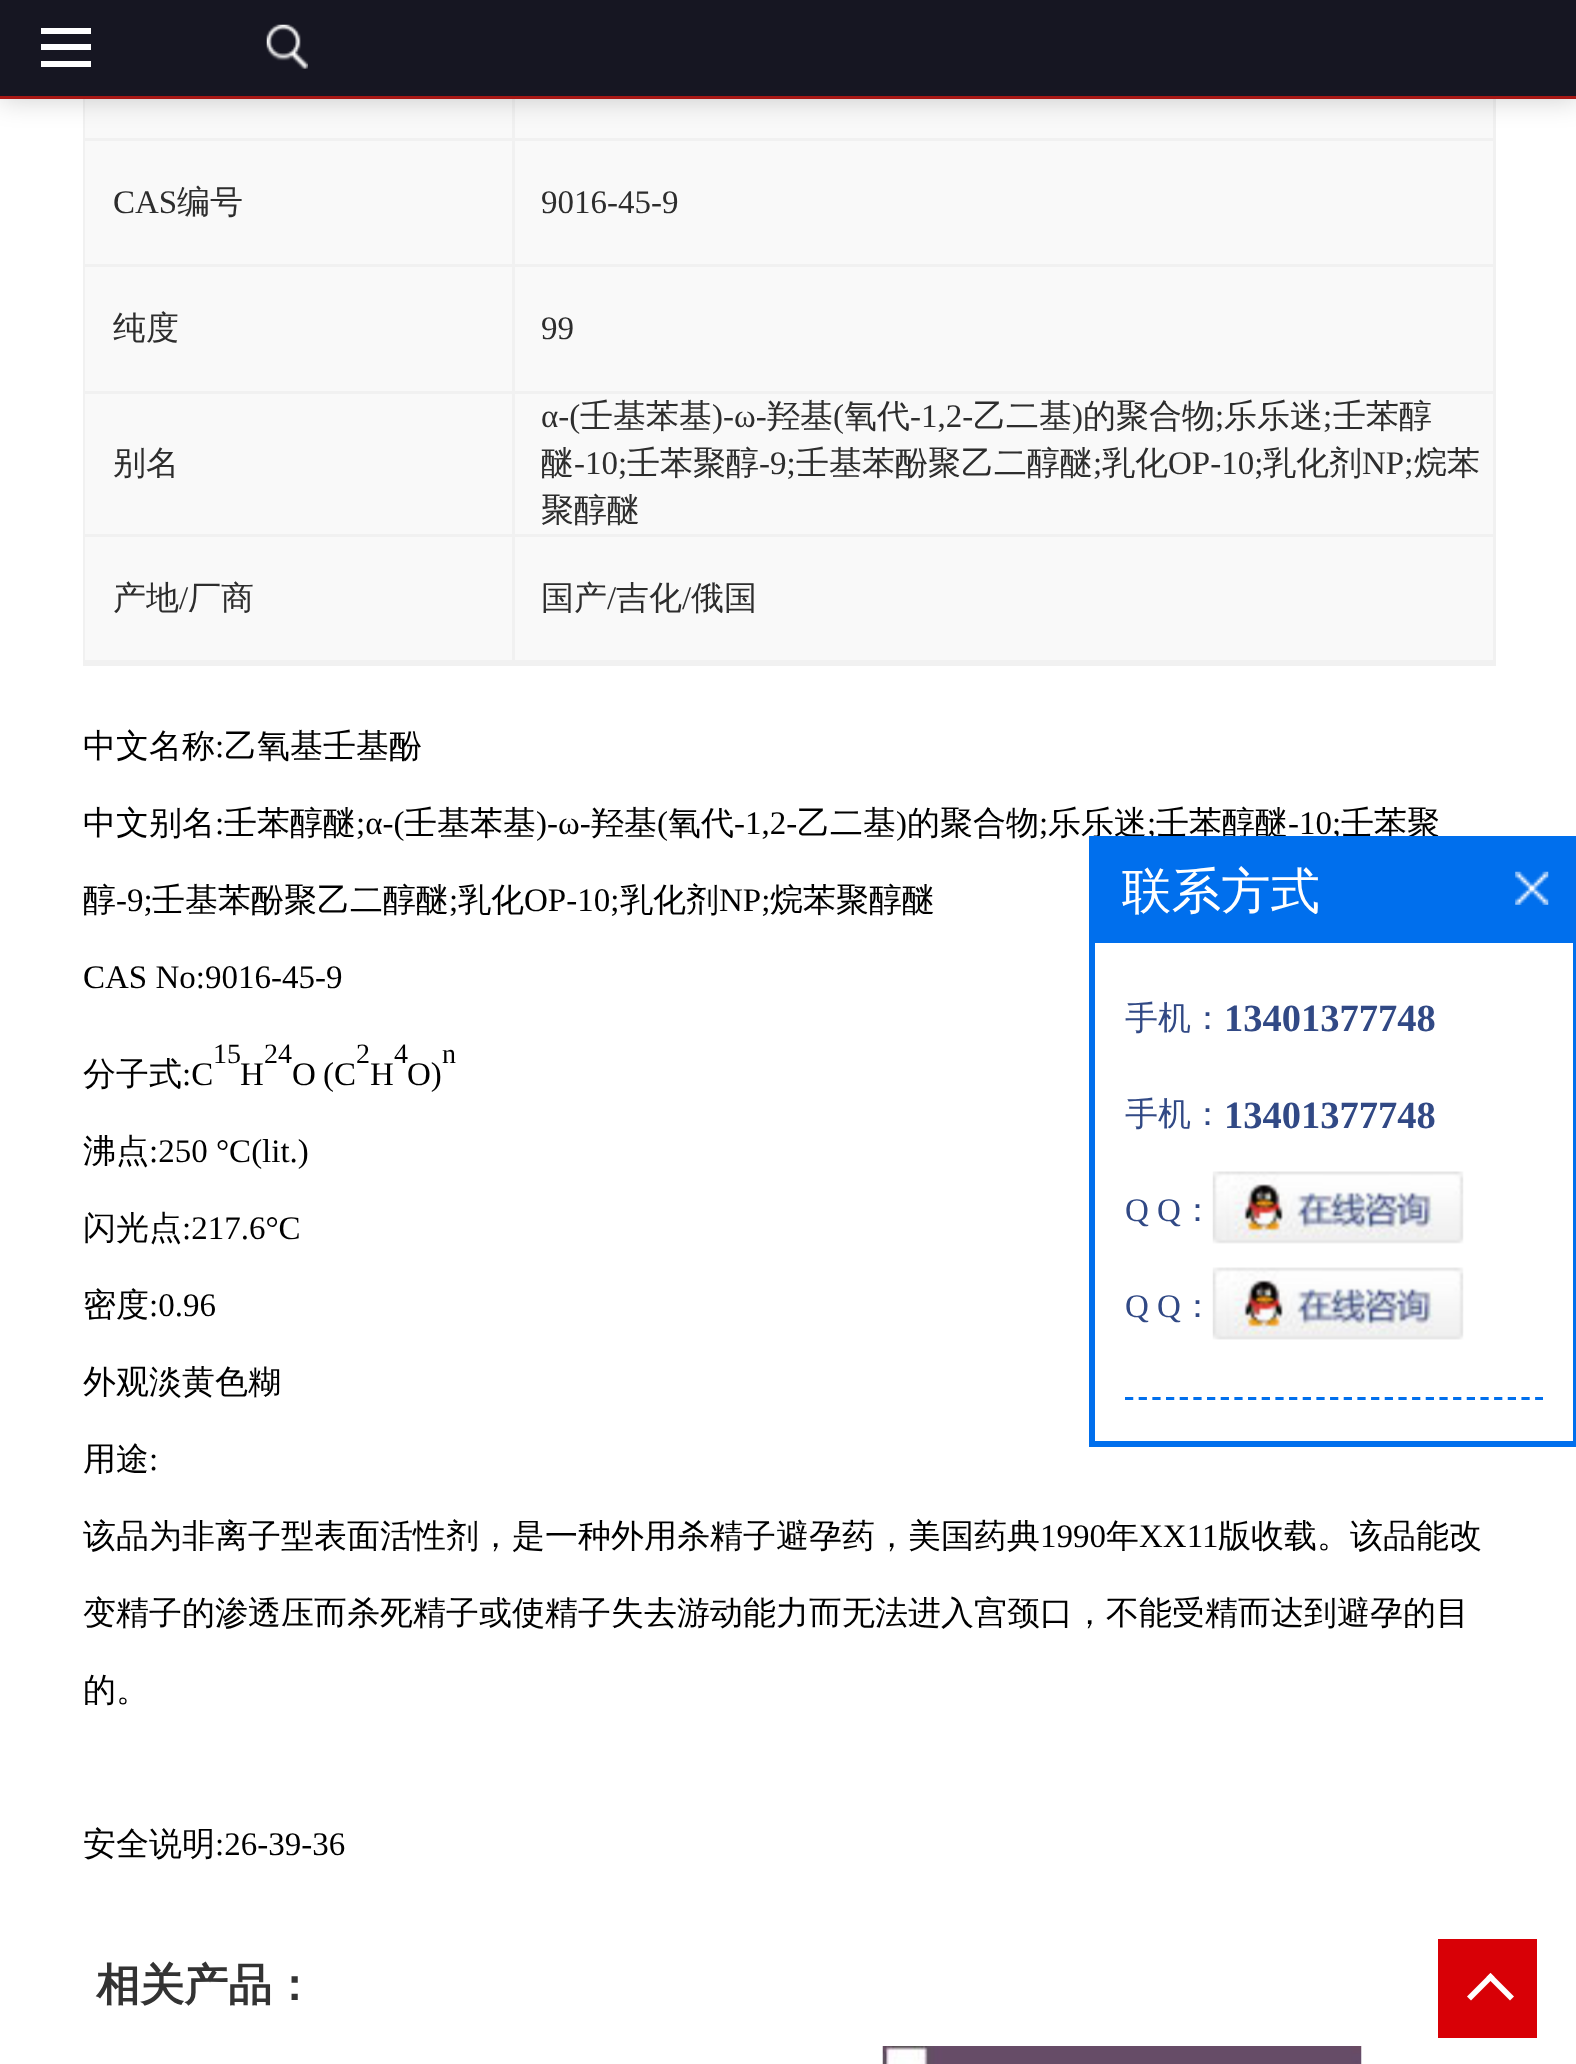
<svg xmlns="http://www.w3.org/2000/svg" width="1576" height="2064">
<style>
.a{font:33px Liberation Serif;fill:#2d2d2d}
.b{font:500 33px WenQuanYi Zen Hei;fill:#2d2d2d}
.c{font:500 33px WenQuanYi Zen Hei;fill:#000}
.d{font:33px Liberation Serif;fill:#000}
.e{font:28px Liberation Serif;fill:#000}
.f{font:bold 44px WenQuanYi Zen Hei;fill:#333}
.g{font:500 49.5px WenQuanYi Zen Hei;fill:#fff}
.h{font:500 33px WenQuanYi Zen Hei;fill:#314985}
.i{font:bold 38.5px Liberation Serif;fill:#314985}
.j{font:33px Liberation Serif;fill:#314985}
</style>
<rect width="100%" height="100%" fill="#fff"/>
<path fill="#f1f1f1" d="M83 663h1413v3H83z"/>
<path fill="#f1f1f1" d="M83 99h3v567H83z"/>
<path fill="#f9f9f9" d="M85 99h1408v561H85z"/>
<path fill="#f1f1f1" d="M512 99h3v41H512z"/>
<path fill="#f1f1f1" d="M85 138h429v3H85z"/>
<path fill="#f1f1f1" d="M1493 99h3v41H1493z"/>
<path fill="#f1f1f1" d="M514 138h982v3H514z"/>
<path fill="#f1f1f1" d="M512 140h3v253H512z"/>
<path fill="#f1f1f1" d="M1493 140h3v253H1493z"/>
<path fill="#00000033" filter="blur(14px)" d="M0 0h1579v99H0z"/>
<path fill="#a81815" d="M0 96h1576v3H0z"/>
<path fill="#161622" d="M0 0h1576v96H0z"/>
<path fill="#fff" d="M41 28h50v6H41z"/>
<path fill="#fff" d="M41 44h50v6H41z"/>
<path fill="#fff" d="M41 61h50v6H41z"/>
<image href="1.png" x="266" y="24" width="42" height="45"/>
<path fill="#f1f1f1" d="M85 264h429v3H85z"/>
<path fill="#f1f1f1" d="M514 264h982v3H514z"/>
<path fill="#f1f1f1" d="M85 391h1411v3H85z"/>
<path fill="#f1f1f1" d="M512 393h3v143H512z"/>
<path fill="#f1f1f1" d="M85 534h429v3H85z"/>
<path fill="#f1f1f1" d="M1493 393h3v143H1493z"/>
<path fill="#f1f1f1" d="M514 534h982v3H514z"/>
<path fill="#f1f1f1" d="M512 536h3v127H512z"/>
<path fill="#f1f1f1" d="M85 660h429v3H85z"/>
<path fill="#f1f1f1" d="M1493 536h3v127H1493z"/>
<path fill="#f1f1f1" d="M514 660h982v3H514z"/>
<image href="2.png" x="882" y="2046" width="480" height="18"/>
<path fill="#d80006" d="M1438 1939h99v99H1438z"/>
<path fill="#fff" d="M1467 1996.5l23.5-23.5l4 4l-23.5 23.5z"/>
<path fill="#fff" d="M1486.5 1977l4-4l23.5 23.5l-4 4z"/>
<text class="a" x="113" y="213">CAS</text>
<text class="b" x="177" y="213">编号</text>
<text class="a" x="541" y="213">9016-45-9</text>
<text class="b" x="113" y="339">纯度</text>
<text class="a" x="541" y="339">99</text>
<text class="b" x="113" y="474">别名</text>
<text class="a" x="541" y="427">α-(</text>
<text class="b" x="580" y="427">壬基苯基</text>
<text class="a" x="712" y="427">)-ω-</text>
<text class="b" x="767" y="427">羟基</text>
<text class="a" x="833" y="427">(</text>
<text class="b" x="844" y="427">氧代</text>
<text class="a" x="910" y="427">-1,2-</text>
<text class="b" x="973" y="427">乙二基</text>
<text class="a" x="1072" y="427">)</text>
<text class="b" x="1083" y="427">的聚合物</text>
<text class="a" x="1215" y="427">;</text>
<text class="b" x="1224" y="427">乐乐迷</text>
<text class="a" x="1323" y="427">;</text>
<text class="b" x="1333" y="427">壬苯醇</text>
<text class="b" x="541" y="474">醚</text>
<text class="a" x="574" y="474">-10;</text>
<text class="b" x="627" y="474">壬苯聚醇</text>
<text class="a" x="759" y="474">-9;</text>
<text class="b" x="796" y="474">壬基苯酚聚乙二醇醚</text>
<text class="a" x="1093" y="474">;</text>
<text class="b" x="1102" y="474">乳化</text>
<text class="a" x="1168" y="474">OP-10;</text>
<text class="b" x="1263" y="474">乳化剂</text>
<text class="a" x="1362" y="474">NP;</text>
<text class="b" x="1414" y="474">烷苯</text>
<text class="b" x="541" y="521">聚醇醚</text>
<text class="b" x="113" y="609">产地</text>
<text class="a" x="179" y="609">/</text>
<text class="b" x="188" y="609">厂商</text>
<text class="b" x="541" y="609">国产</text>
<text class="a" x="607" y="609">/</text>
<text class="b" x="616" y="609">吉化</text>
<text class="a" x="682" y="609">/</text>
<text class="b" x="691" y="609">俄国</text>
<text class="c" x="83" y="757">中文名称</text>
<text class="d" x="215" y="757">:</text>
<text class="c" x="224" y="757">乙氧基壬基酚</text>
<text class="c" x="83" y="834">中文别名</text>
<text class="d" x="215" y="834">:</text>
<text class="c" x="224" y="834">壬苯醇醚</text>
<text class="d" x="356" y="834">;α-(</text>
<text class="c" x="404" y="834">壬基苯基</text>
<text class="d" x="536" y="834">)-ω-</text>
<text class="c" x="591" y="834">羟基</text>
<text class="d" x="657" y="834">(</text>
<text class="c" x="668" y="834">氧代</text>
<text class="d" x="734" y="834">-1,2-</text>
<text class="c" x="797" y="834">乙二基</text>
<text class="d" x="896" y="834">)</text>
<text class="c" x="907" y="834">的聚合物</text>
<text class="d" x="1039" y="834">;</text>
<text class="c" x="1048" y="834">乐乐迷</text>
<text class="d" x="1147" y="834">;</text>
<text class="c" x="1156" y="834">壬苯醇醚</text>
<text class="d" x="1288" y="834">-10;</text>
<text class="c" x="1341" y="834">壬苯聚</text>
<text class="c" x="83" y="911">醇</text>
<text class="d" x="116" y="911">-9;</text>
<text class="c" x="152" y="911">壬基苯酚聚乙二醇醚</text>
<text class="d" x="449" y="911">;</text>
<text class="c" x="458" y="911">乳化</text>
<text class="d" x="524" y="911">OP-10;</text>
<text class="c" x="620" y="911">乳化剂</text>
<text class="d" x="719" y="911">NP;</text>
<text class="c" x="770" y="911">烷苯聚醇醚</text>
<text class="d" x="83" y="988">CAS No:9016-45-9</text>
<text class="c" x="83" y="1085">分子式</text>
<text class="d" x="182" y="1085">:C</text>
<text class="e" x="213" y="1063">15</text>
<text class="d" x="240" y="1085">H</text>
<text class="e" x="264" y="1063">24</text>
<text class="d" x="292" y="1085">O</text>
<text class="d" x="323" y="1085">(C</text>
<text class="e" x="356" y="1063">2</text>
<text class="d" x="370" y="1085">H</text>
<text class="e" x="394" y="1063">4</text>
<text class="d" x="407" y="1085">O)</text>
<text class="e" x="442" y="1063">n</text>
<text class="c" x="83" y="1162">沸点</text>
<text class="d" x="149" y="1162">:250 °C(lit.)</text>
<text class="c" x="83" y="1239">闪光点</text>
<text class="d" x="182" y="1239">:217.6°C</text>
<text class="c" x="83" y="1316">密度</text>
<text class="d" x="149" y="1316">:0.96</text>
<text class="c" x="83" y="1393">外观淡黄色糊</text>
<text class="c" x="83" y="1470">用途</text>
<text class="d" x="149" y="1470">:</text>
<text class="c" x="83" y="1547">该品为非离子型表面活性剂，是一种外用杀精子避孕药，美国药典</text>
<text class="d" x="1040" y="1547">1990</text>
<text class="c" x="1106" y="1547">年</text>
<text class="d" x="1139" y="1547">XX11</text>
<text class="c" x="1218" y="1547">版收载。该品能改</text>
<text class="c" x="83" y="1624">变精子的渗透压而杀死精子或使精子失去游动能力而无法进入宫颈口，不能受精而达到避孕的目</text>
<text class="c" x="83" y="1701">的。</text>
<text class="c" x="83" y="1855">安全说明</text>
<text class="d" x="215" y="1855">:26-39-36</text>
<text class="f" x="96" y="2000">相关产品：</text>
<path fill="#006fed" d="M1089 836h487v611H1089z"/>
<text class="g" x="1122" y="908">联系方式</text>
<image href="3.png" x="1515" y="871" width="34" height="34"/>
<path fill="#fff" d="M1095 943h478v498H1095z"/>
<path fill="none" stroke="#006fed" stroke-width="2.8" stroke-dasharray="8.25 5.42" d="M1125 1398.5h418"/>
<text class="h" x="1125" y="1029">手机：</text>
<text class="i" x="1224" y="1031">13401377748</text>
<text class="h" x="1125" y="1125">手机：</text>
<text class="i" x="1224" y="1128">13401377748</text>
<text class="j" x="1125" y="1221">Q Q</text>
<text class="h" x="1181" y="1221">：</text>
<image href="4.png" x="1212" y="1171" width="252" height="73"/>
<text class="j" x="1125" y="1317">Q Q</text>
<text class="h" x="1181" y="1317">：</text>
<image href="5.png" x="1212" y="1267" width="252" height="73"/>
</svg>
